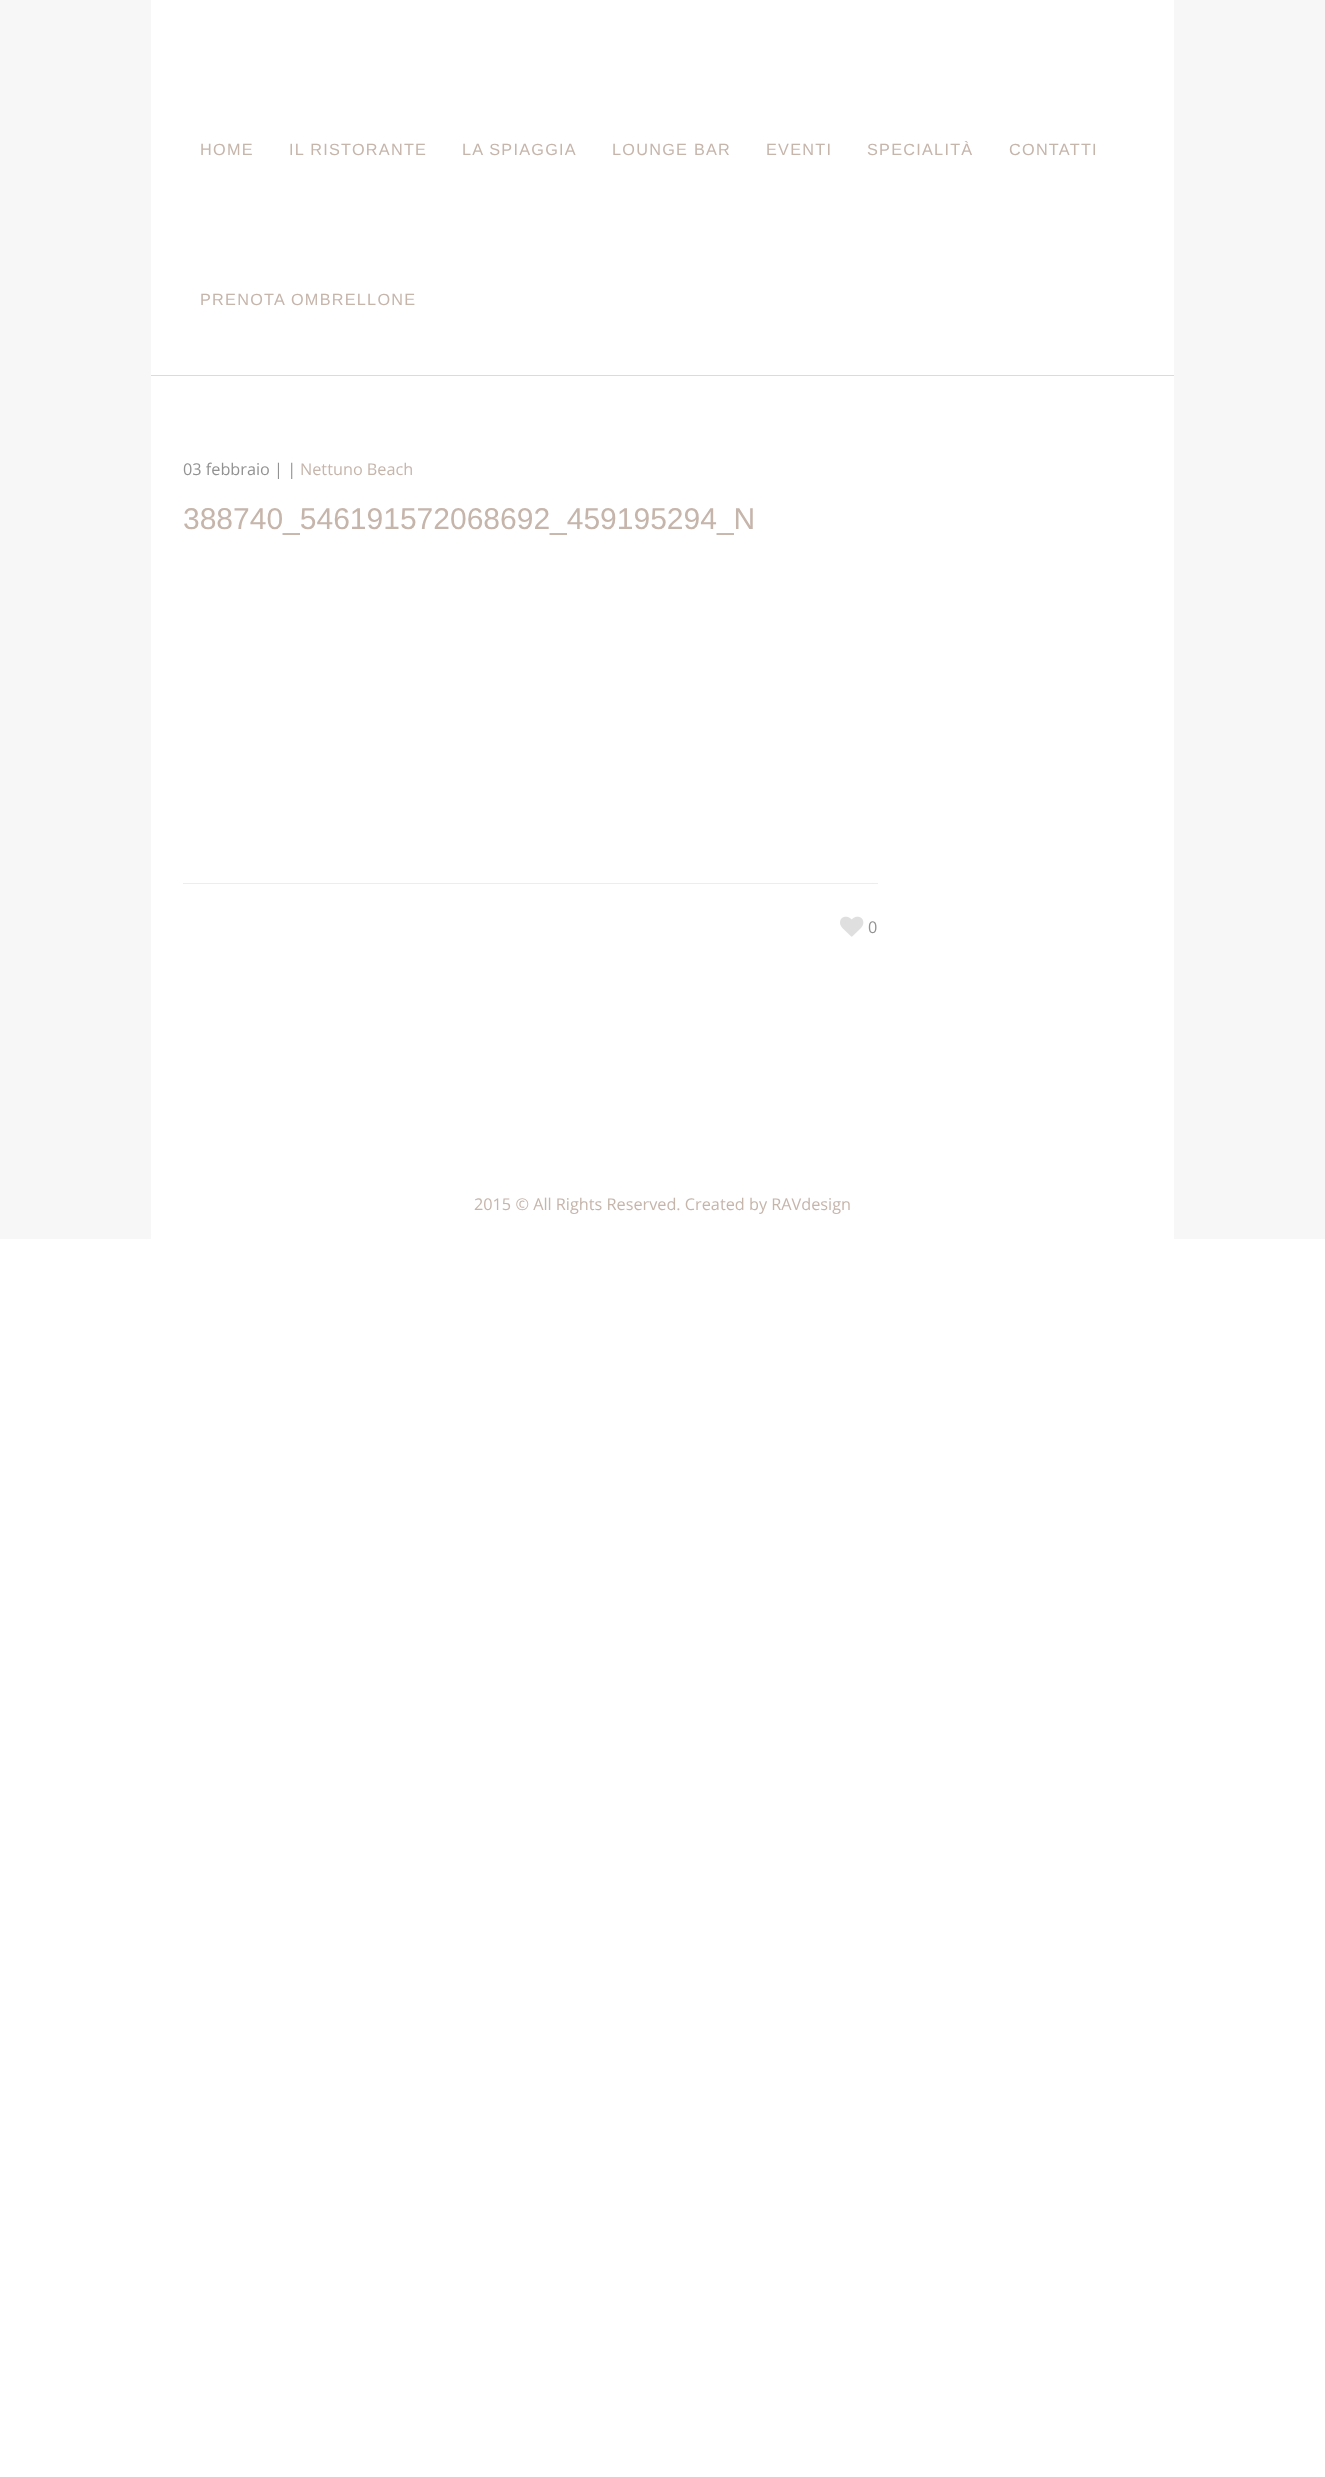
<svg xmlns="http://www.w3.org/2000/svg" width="1325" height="2477">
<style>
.a{font:16.25px Liberation Sans;letter-spacing:1.25px;fill:#c6b5ab}
.b{font:16.25px Open Sans;fill:#929292}
.c{font:16.25px Open Sans;fill:#c6b5ab}
.d{font:30px Liberation Sans;fill:#c6b5ab}
</style>
<rect width="100%" height="100%" fill="#fff"/>
<path fill="#f7f7f7" d="M0 0h1325v1239H0z"/>
<path fill="#dbdbdb" d="M151 375h1023v1H151z"/>
<path fill="#fff" d="M151 0h1023v375H151z"/>
<path fill="#fff" d="M151 376h1023v863H151z"/>
<path fill="#ededed" d="M183 883h695v1H183z"/>
<image href="1.png" x="840" y="916" width="24" height="21"/>
<text class="a" x="200" y="155">HOME</text>
<text class="a" x="289" y="155">IL RISTORANTE</text>
<text class="a" x="462" y="155">LA SPIAGGIA</text>
<text class="a" x="612" y="155">LOUNGE BAR</text>
<text class="a" x="766" y="155">EVENTI</text>
<text class="a" x="867" y="155">SPECIALITÀ</text>
<text class="a" x="1009" y="155">CONTATTI</text>
<text class="a" x="200" y="305">PRENOTA OMBRELLONE</text>
<text class="b" x="183" y="475">03 febbraio | |</text>
<text class="c" x="300" y="475">Nettuno Beach</text>
<text class="d" x="183" y="529">388740_546191572068692_459195294_N</text>
<text class="b" x="868" y="933">0</text>
<text class="c" x="474" y="1210">2015 © All Rights Reserved. Created by RAVdesign</text>
</svg>
